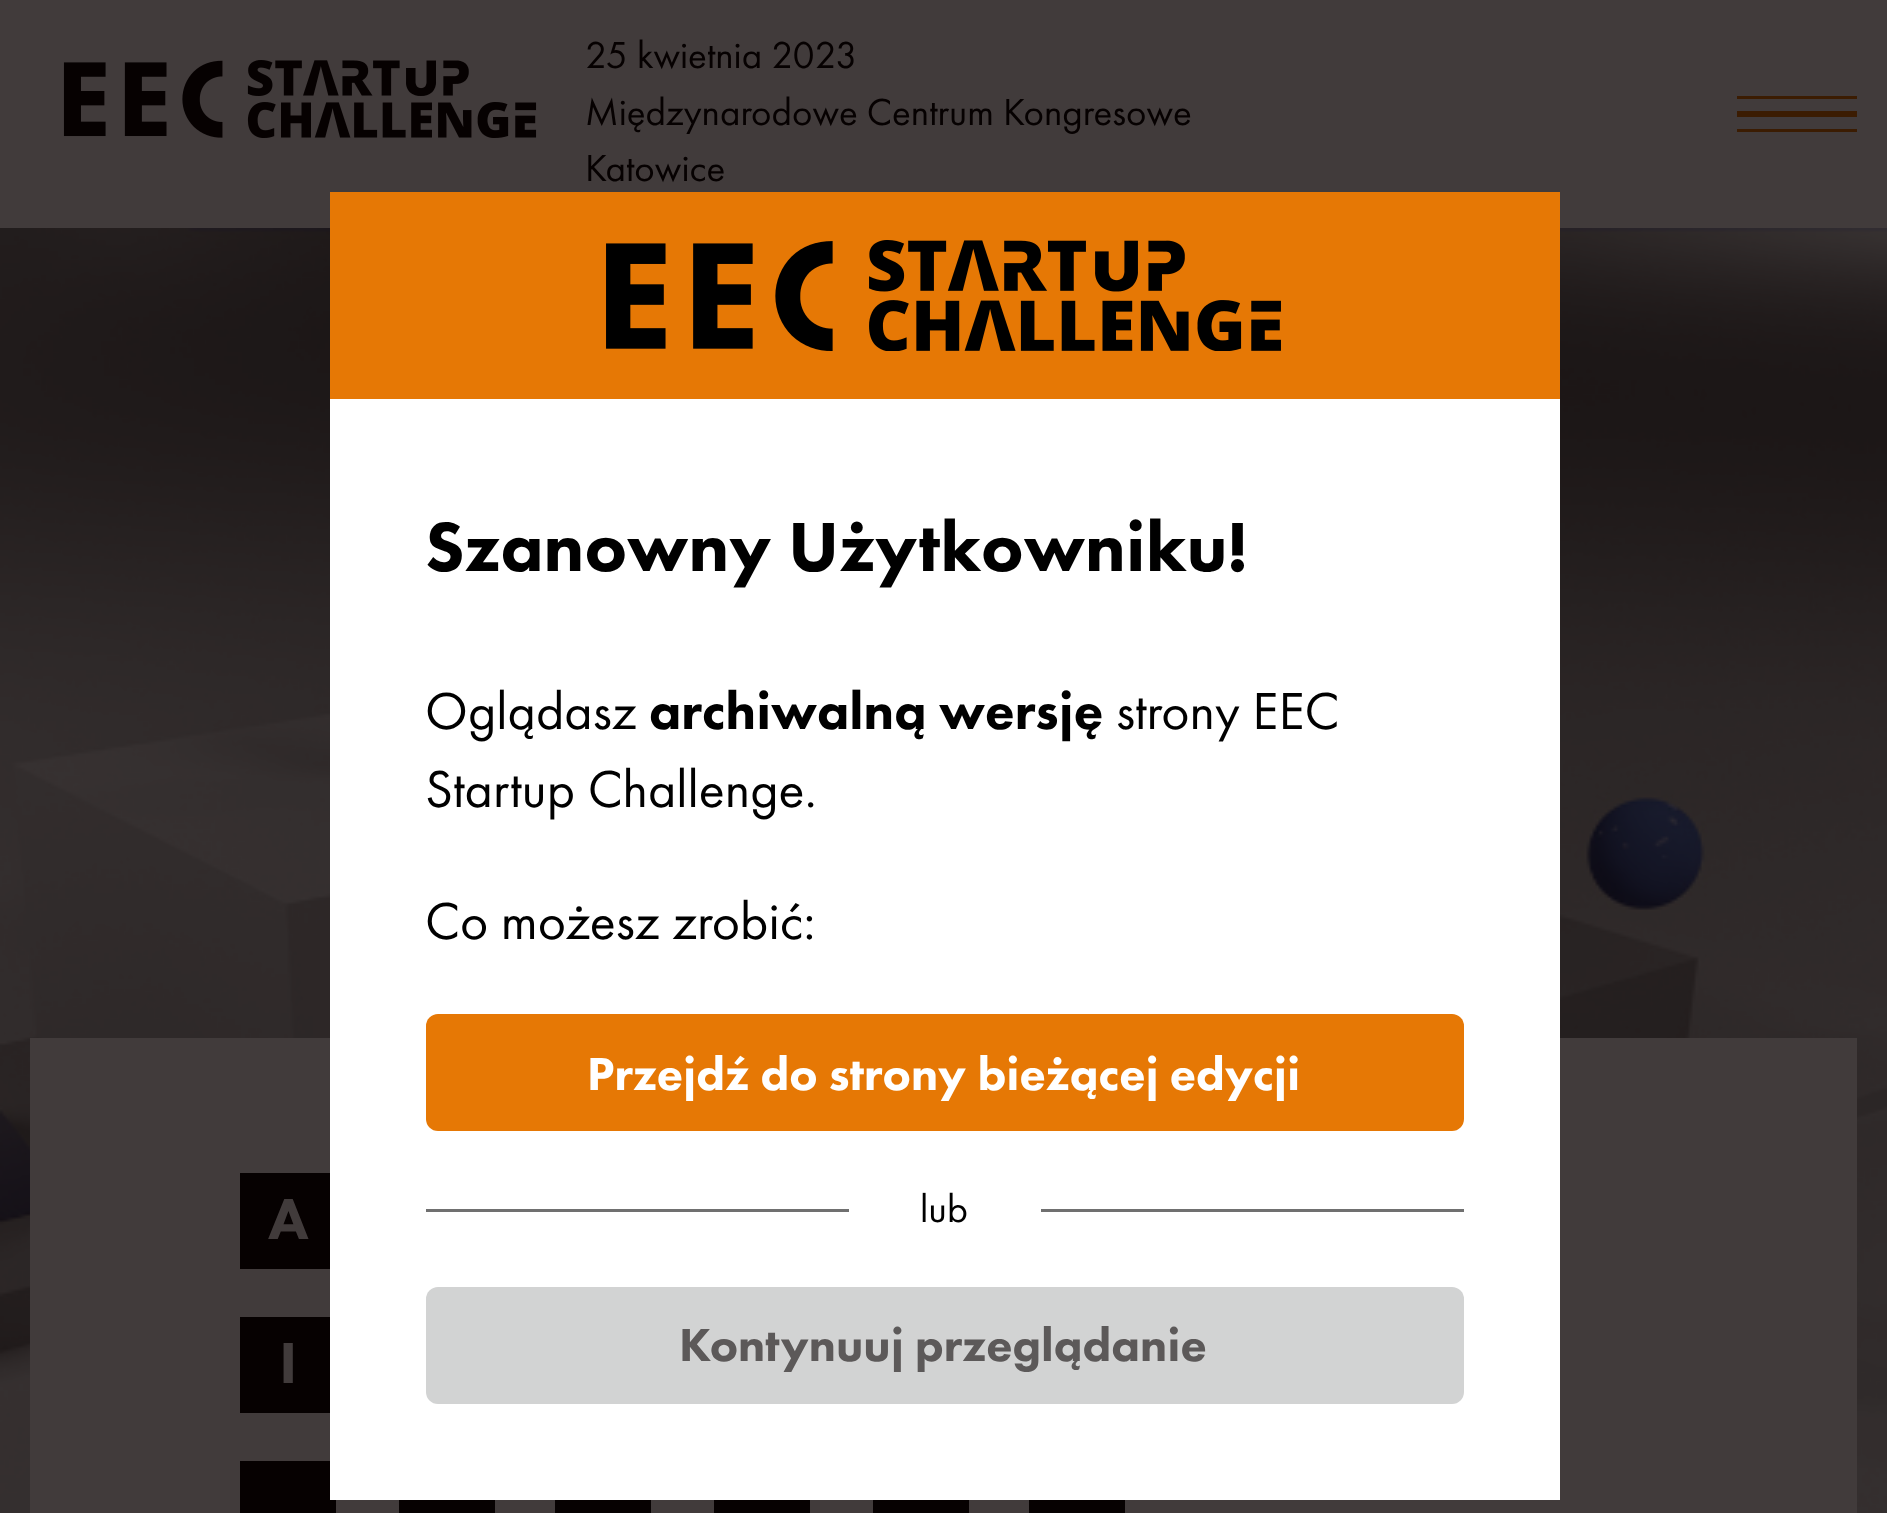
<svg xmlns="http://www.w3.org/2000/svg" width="1887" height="1513">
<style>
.a{font:39px Futura PT;fill:#060101}
.b{font:900 60px Futura PT;fill:#413b3b}
.c{font:900 72px Futura PT;fill:#000}
.d{font:54px Futura PT;fill:#000}
.e{font:900 54px Futura PT;fill:#000}
.f{font:900 48px Futura PT;fill:#fff}
.g{font:40px Futura PT;fill:#000}
.h{font:900 48px Futura PT;fill:#5c5959}
</style>
<rect width="100%" height="100%" fill="#fff"/>
<path fill="#413b3b" d="M0 0h1887v228H0z"/>
<image href="1.png" x="63" y="60" width="474" height="78"/>
<path fill="#3b1c02" d="M1737 96h120v3H1737z"/>
<path fill="#3b1c02" d="M1737 111h120v6H1737z"/>
<path fill="#3b1c02" d="M1737 129h120v3H1737z"/>
<image href="2.png" x="0" y="228" width="1887" height="1285"/>
<path fill="#413b3b" d="M30 1038h1827v475H30z"/>
<path fill="#060101" d="M240 1173h90v96H240z"/>
<path fill="#060101" d="M240 1317h90v96H240z"/>
<path fill="#060101" d="M240 1461h96v52H240z"/>
<path fill="#060101" d="M399 1500h96v13H399z"/>
<path fill="#060101" d="M555 1500h96v13H555z"/>
<path fill="#060101" d="M714 1500h96v13H714z"/>
<path fill="#060101" d="M873 1500h96v13H873z"/>
<path fill="#060101" d="M1029 1500h96v13H1029z"/>
<path fill="#fff" d="M330 399h1230v1101H330z"/>
<path fill="#e67805" d="M330 192h1230v207H330z"/>
<image href="3.png" x="606" y="240" width="675" height="111"/>
<rect fill="#e67805" x="426" y="1014" width="1038" height="117" rx="12"/>
<path fill="#707070" d="M426 1209h1038v3H426z"/>
<path fill="#fff" d="M849 1209h192v3H849z"/>
<rect fill="#d2d3d3" x="426" y="1287" width="1038" height="117" rx="12"/>
<text class="a" x="585" y="68">25 kwietnia 2023</text>
<text class="a" x="585" y="125">Międzynarodowe Centrum Kongresowe</text>
<text class="a" x="585" y="181">Katowice</text>
<text class="b" x="268" y="1239">A</text>
<text class="b" x="279" y="1383">I</text>
<text class="c" x="425" y="571">Szanowny Użytkowniku!</text>
<text class="d" x="425" y="729">Oglądasz</text>
<text class="e" x="649" y="729">archiwalną wersję</text>
<text class="d" x="1116" y="729">strony EEC</text>
<text class="d" x="425" y="807">Startup Challenge.</text>
<text class="d" x="425" y="939">Co możesz zrobić:</text>
<text class="f" x="587" y="1090">Przejdź do strony bieżącej edycji</text>
<text class="g" x="920" y="1222">lub</text>
<text class="h" x="679" y="1361">Kontynuuj przeglądanie</text>
</svg>
